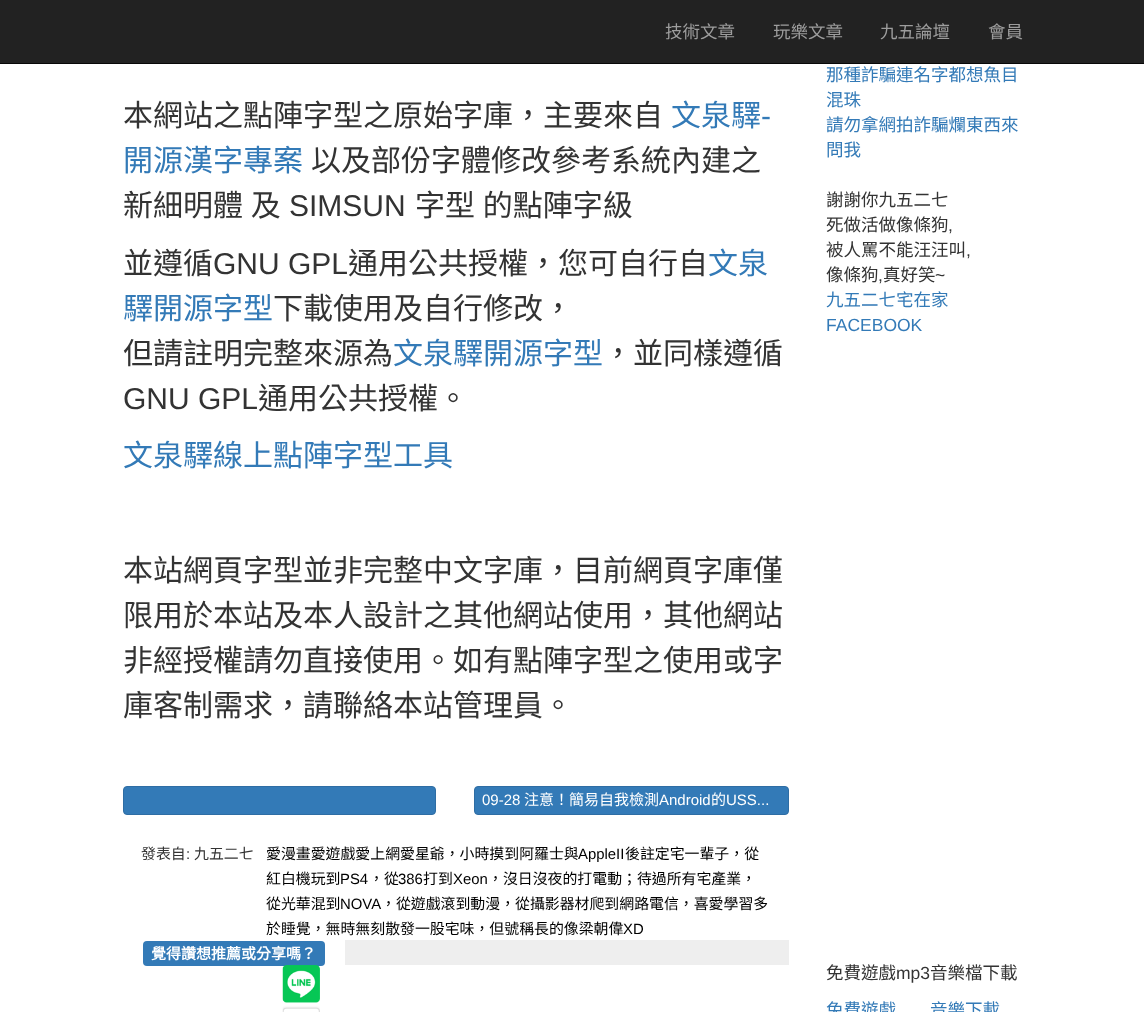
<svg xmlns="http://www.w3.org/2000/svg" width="1144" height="1012">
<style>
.a{font:17.5px Noto Sans CJK TC;fill:#9d9d9d}
.b{font:30px Noto Sans CJK TC;fill:#333}
.c{font:30px Noto Sans CJK TC;fill:#337ab7}
.d{font:30px Liberation Sans;fill:#337ab7}
.e{font:30px Liberation Sans;fill:#333}
.f{font:15px Liberation Sans;fill:#fff}
.g{font:15px Noto Sans CJK TC;fill:#fff}
.h{font:14.9px Noto Sans CJK TC;fill:#333}
.i{font:14.9px Liberation Sans;fill:#333}
.j{font:14.9px Noto Sans CJK TC;fill:#000}
.k{font:14.9px Liberation Sans;fill:#000}
.l{font:bold 15px Noto Sans CJK TC;fill:#fff}
.m{font:17.5px Noto Sans CJK TC;fill:#337ab7}
.n{font:17.5px Noto Sans CJK TC;fill:#333}
.o{font:17.5px Liberation Sans;fill:#333}
.p{font:17.5px Liberation Sans;fill:#337ab7}
</style>
<rect width="100%" height="100%" fill="#fff"/>
<path fill="#222" d="M0 0h1144v63H0z"/>
<path fill="#080808" d="M0 63h1144v1H0z"/>
<rect fill="#337ab7" stroke="#2e6da4" x="123.5" y="786.5" width="312" height="28" rx="3.5"/>
<rect fill="#337ab7" stroke="#2e6da4" x="474.5" y="786.5" width="314" height="28" rx="3.5"/>
<rect fill="#337ab7" x="143" y="941" width="182" height="25" rx="4"/>
<image href="1.png" x="282" y="965" width="38" height="47"/>
<path fill="#eee" d="M345 940h444v25H345z"/>
<text class="a" x="665" y="38">技術文章</text>
<text class="a" x="773" y="38">玩樂文章</text>
<text class="a" x="880" y="38">九五論壇</text>
<text class="a" x="988" y="38">會員</text>
<text class="b" x="123" y="126">本網站之點陣字型之原始字庫，主要來自</text>
<text class="c" x="671" y="126">文泉驛</text>
<text class="d" x="761" y="126">-</text>
<text class="c" x="123" y="171">開源漢字專案</text>
<text class="b" x="311" y="171">以及部份字體修改參考系統內建之</text>
<text class="b" x="123" y="216" word-spacing="1">新細明體 及</text>
<text class="e" x="289" y="216">SIMSUN</text>
<text class="b" x="415" y="216" word-spacing="1">字型 的點陣字級</text>
<text class="b" x="123" y="274">並遵循</text>
<text class="e" x="213" y="274">GNU GPL</text>
<text class="b" x="348" y="274">通用公共授權，您可自行自</text>
<text class="c" x="708" y="274">文泉</text>
<text class="c" x="123" y="319">驛開源字型</text>
<text class="b" x="273" y="319">下載使用及自行修改，</text>
<text class="b" x="123" y="364">但請註明完整來源為</text>
<text class="c" x="393" y="364">文泉驛開源字型</text>
<text class="b" x="603" y="364">，並同樣遵循</text>
<text class="e" x="123" y="409">GNU GPL</text>
<text class="b" x="258" y="409">通用公共授權。</text>
<text class="c" x="123" y="466">文泉驛線上點陣字型工具</text>
<text class="b" x="123" y="581">本站網頁字型並非完整中文字庫，目前網頁字庫僅</text>
<text class="b" x="123" y="626">限用於本站及本人設計之其他網站使用，其他網站</text>
<text class="b" x="123" y="671">非經授權請勿直接使用。如有點陣字型之使用或字</text>
<text class="b" x="123" y="716">庫客制需求，請聯絡本站管理員。</text>
<text class="f" x="482" y="805">09-28</text>
<text class="g" x="524" y="805">注意！簡易自我檢測</text>
<text class="f" x="659" y="805">Android</text>
<text class="g" x="711" y="805">的</text>
<text class="f" x="726" y="805">USS...</text>
<text class="h" x="141" y="859">發表自</text>
<text class="i" x="186" y="859">:</text>
<text class="h" x="194" y="859">九五二七</text>
<text class="j" x="266" y="859">愛漫畫愛遊戲愛上網愛星爺，小時摸到阿羅士與</text>
<text class="k" x="578" y="859">AppleII</text>
<text class="j" x="625" y="859">後註定宅一輩子，從</text>
<text class="j" x="266" y="884">紅白機玩到</text>
<text class="k" x="340" y="884">PS4</text>
<text class="j" x="369" y="884">，從</text>
<text class="k" x="398" y="884">386</text>
<text class="j" x="423" y="884">打到</text>
<text class="k" x="453" y="884">Xeon</text>
<text class="j" x="488" y="884">，沒日沒夜的打電動；待過所有宅產業，</text>
<text class="j" x="266" y="909">從光華混到</text>
<text class="k" x="340" y="909">NOVA</text>
<text class="j" x="381" y="909">，從遊戲滾到動漫，從攝影器材爬到網路電信，喜愛學習多</text>
<text class="j" x="266" y="934">於睡覺，無時無刻散發一股宅味，但號稱長的像梁朝偉</text>
<text class="k" x="623" y="934">XD</text>
<text class="l" x="151" y="959">覺得讚想推薦或分享嗎？</text>
<text class="m" x="826" y="81">那種詐騙連名字都想魚目</text>
<text class="m" x="826" y="106">混珠</text>
<text class="m" x="826" y="131">請勿拿網拍詐騙爛東西來</text>
<text class="m" x="826" y="156">問我</text>
<text class="n" x="826" y="206">謝謝你九五二七</text>
<text class="n" x="826" y="231">死做活做像條狗</text>
<text class="o" x="948" y="231">,</text>
<text class="n" x="826" y="256">被人罵不能汪汪叫</text>
<text class="o" x="966" y="256">,</text>
<text class="n" x="826" y="281">像條狗</text>
<text class="n" x="883" y="281">真好笑</text>
<text class="o" x="935" y="281">~</text>
<text class="o" x="878" y="281">,</text>
<text class="m" x="826" y="306">九五二七宅在家</text>
<text class="p" x="826" y="331">FACEBOOK</text>
<text class="n" x="826" y="979">免費遊戲</text>
<text class="o" x="896" y="979">mp3</text>
<text class="n" x="930" y="979">音樂檔下載</text>
<text class="m" x="826" y="1016">免費遊戲</text>
<text class="m" x="930" y="1016">音樂下載</text>
</svg>
